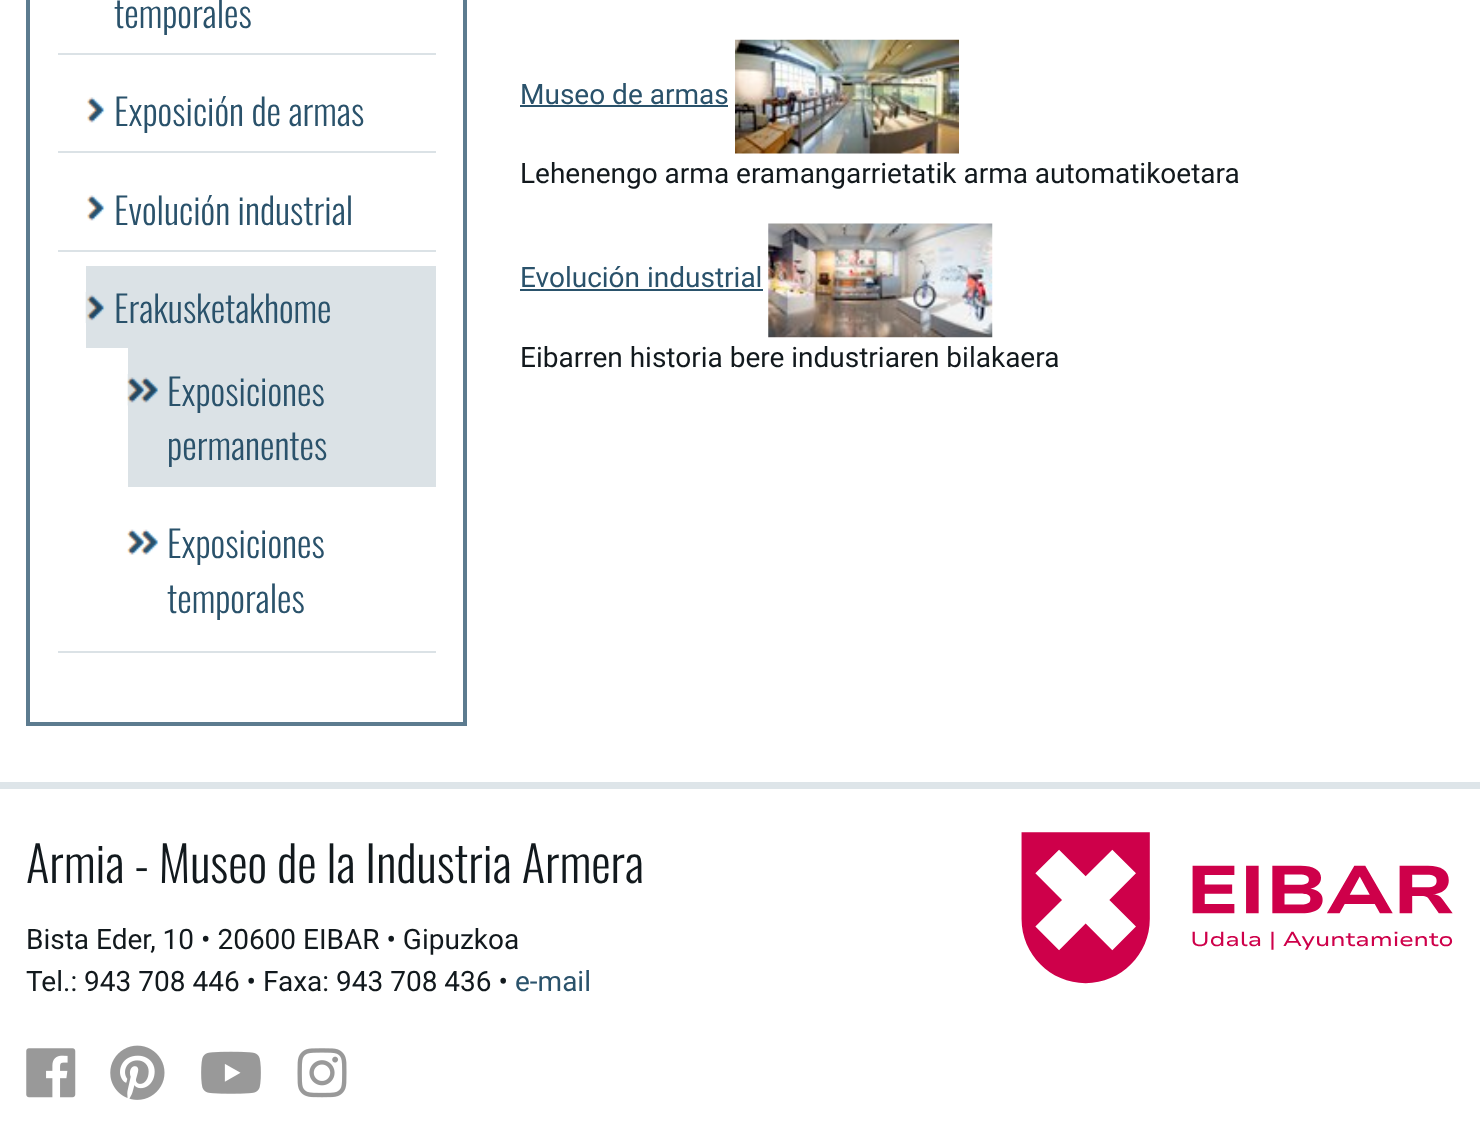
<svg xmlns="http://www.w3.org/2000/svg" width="1480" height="1124">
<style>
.a{font:300 36.5px Oswald;fill:#2a526b}
.b{font:28px Roboto;fill:#2a526b}
.c{font:28px Roboto;fill:#12191d}
.d{font:300 49px Oswald;fill:#12191d}
</style>
<rect width="100%" height="100%" fill="#fff"/>
<path fill="none" stroke="#5c7b8f" stroke-width="4" d="M28 -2h437v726H28z"/>
<path fill="#dbe2e6" d="M58 53h378v2H58z"/>
<path fill="#dbe2e6" d="M58 151h378v2H58z"/>
<image href="1.png" x="87" y="97" width="19" height="26"/>
<path fill="#dbe2e6" d="M58 250h378v2H58z"/>
<image href="1.png" x="87" y="195" width="19" height="26"/>
<path fill="#dbe2e6" d="M58 651h378v2H58z"/>
<path fill="#dbe2e6" d="M86 266h350v82H86z"/>
<image href="2.png" x="85" y="292" width="21" height="31"/>
<path fill="#dbe2e6" d="M128 348h308v139H128z"/>
<image href="3.png" x="127" y="374" width="32" height="32"/>
<image href="4.png" x="127" y="529" width="32" height="26"/>
<path fill="#2a526b" d="M520 105h208v2H520z"/>
<image href="5.png" x="735" y="39" width="224" height="115"/>
<path fill="#2a526b" d="M520 289h243v2H520z"/>
<image href="6.png" x="768" y="223" width="225" height="115"/>
<path fill="#dee5e9" d="M0 782h1480v7H0z"/>
<image href="7.png" x="26" y="1048" width="50" height="50"/>
<image href="8.png" x="110" y="1045" width="55" height="55"/>
<image href="9.png" x="201" y="1051" width="60" height="43"/>
<image href="10.png" x="297" y="1048" width="50" height="50"/>
<image href="11.png" x="1021" y="832" width="432" height="152"/>
<text class="a" x="114" y="28">temporales</text>
<text class="a" x="114" y="126">Exposición de armas</text>
<text class="a" x="114" y="225">Evolución industrial</text>
<text class="a" x="114" y="323">Erakusketakhome</text>
<text class="a" x="167" y="406">Exposiciones</text>
<text class="a" x="167" y="460">permanentes</text>
<text class="a" x="167" y="558">Exposiciones</text>
<text class="a" x="167" y="613">temporales</text>
<text class="b" x="520" y="104">Museo de armas</text>
<text class="c" x="520" y="183">Lehenengo arma eramangarrietatik arma automatikoetara</text>
<text class="b" x="520" y="287">Evolución industrial</text>
<text class="c" x="520" y="367">Eibarren historia bere industriaren bilakaera</text>
<text class="d" x="26" y="883">Armia - Museo de la Industria Armera</text>
<text class="c" x="26" y="949">Bista Eder, 10 • 20600 EIBAR • Gipuzkoa</text>
<text class="c" x="26" y="991">Tel.: 943 708 446 • Faxa: 943 708 436 •</text>
<text class="b" x="515" y="991">e-mail</text>
</svg>
